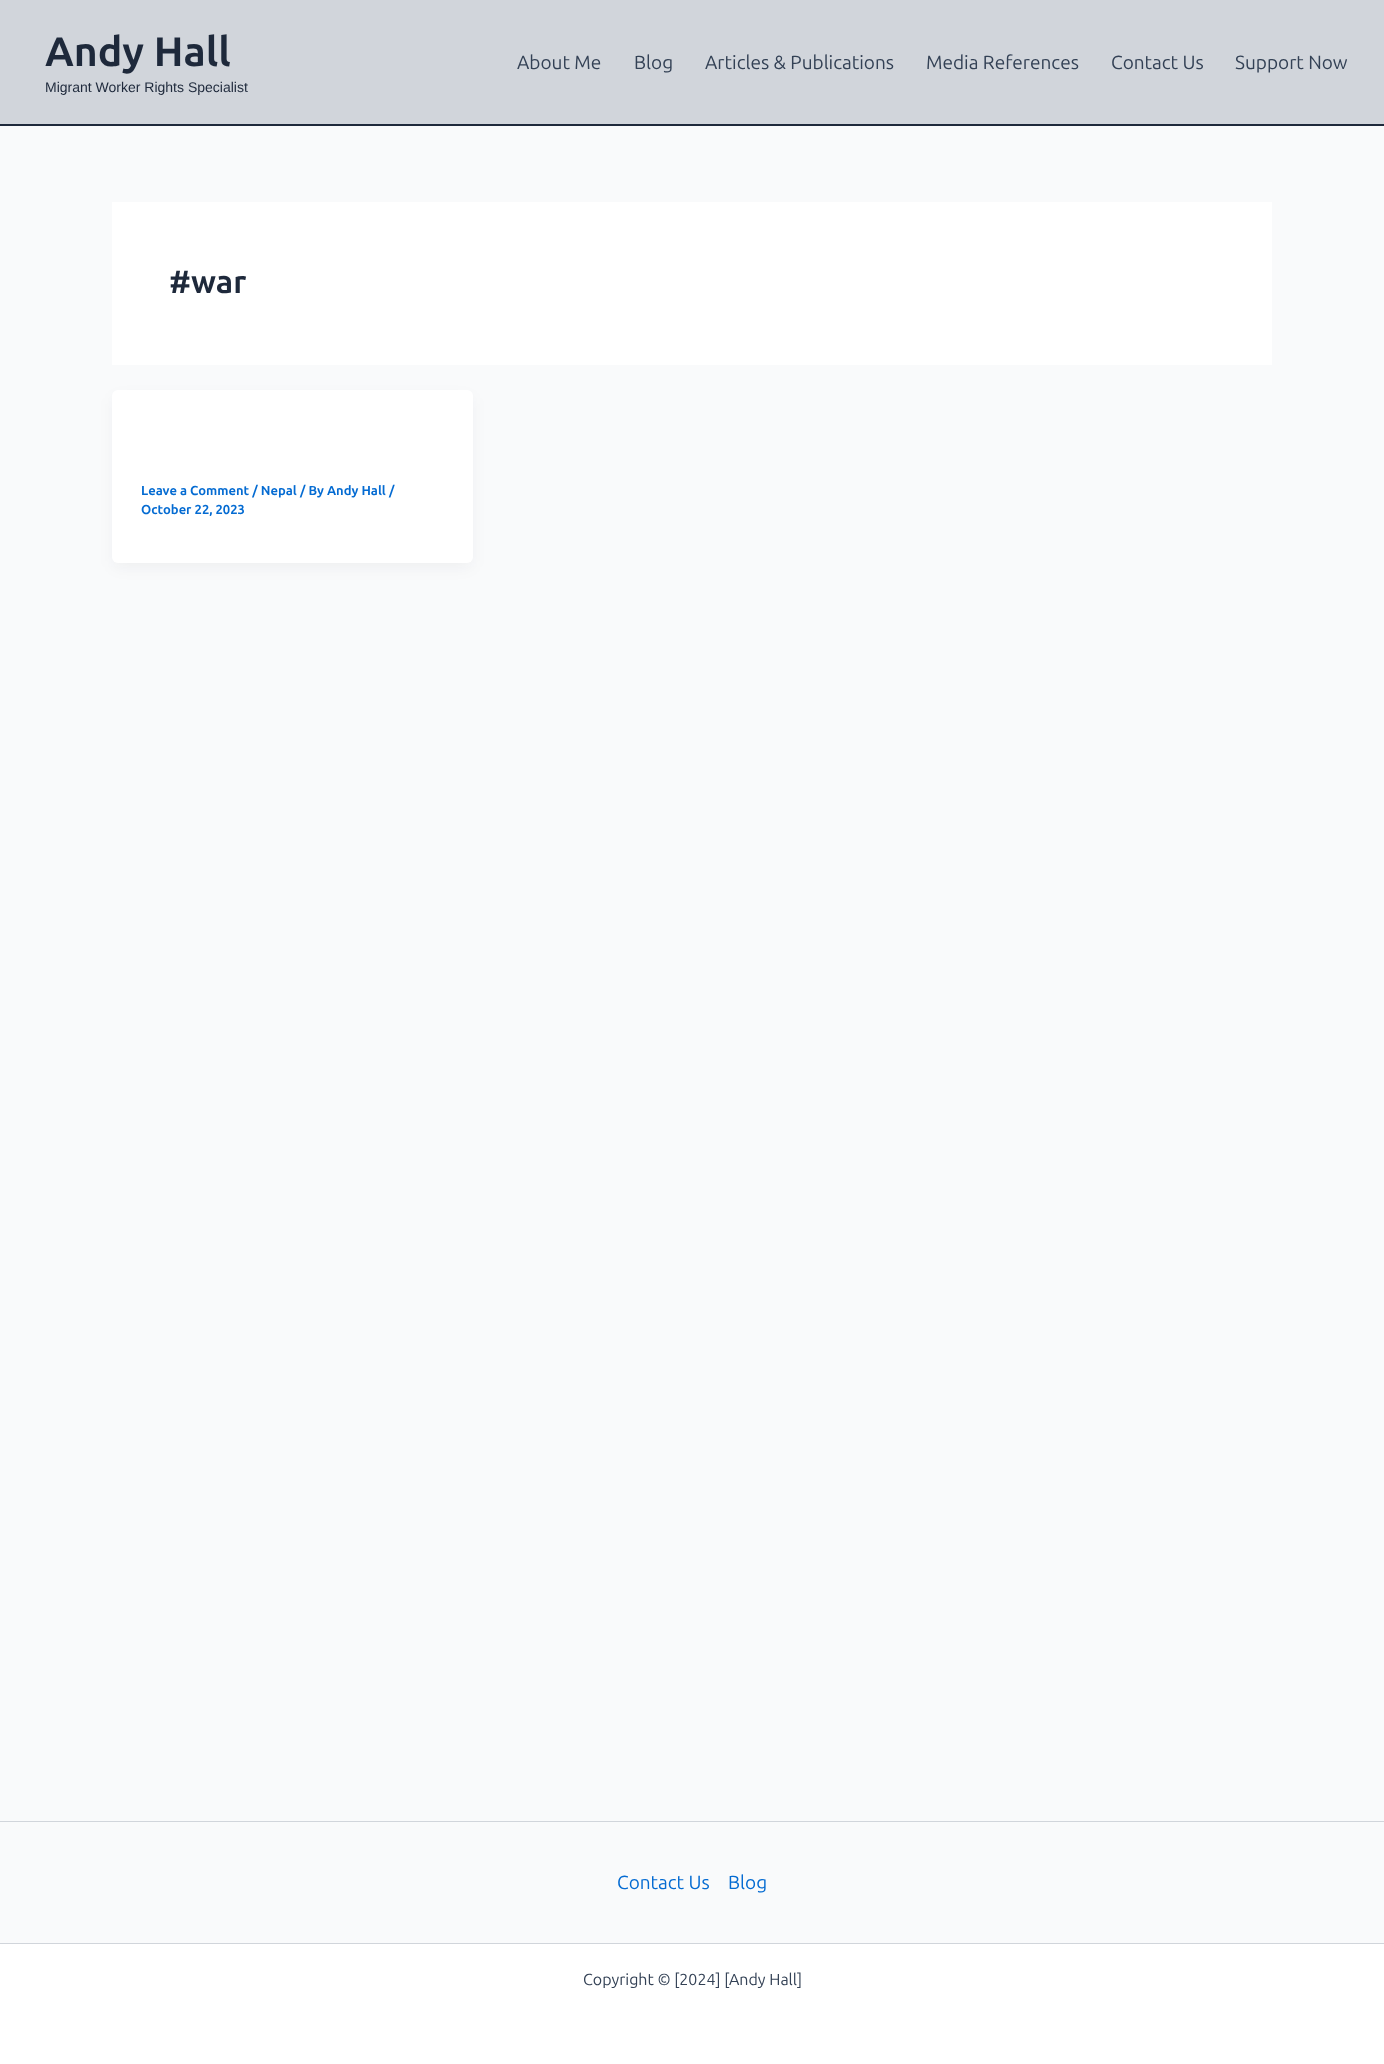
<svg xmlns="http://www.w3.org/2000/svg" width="1384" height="2064">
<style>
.a{font:bold 41px Ubuntu;fill:#1e293b}
.b{font:14px Liberation Sans;fill:#1e293b}
.c{font:19px Ubuntu;fill:#334155}
.d{font:bold 32px Ubuntu;fill:#1e293b}
.e{font:bold 13px Ubuntu;fill:#046bd2}
.f{font:19px Ubuntu;fill:#046bd2}
.g{font:16px Ubuntu;fill:#334155}
</style>
<rect width="100%" height="100%" fill="#f9fafb"/>
<path fill="#d1d5db" d="M0 0h1384v124H0z"/>
<path fill="#1e293b" d="M0 124h1384v2H0z"/>
<path fill="#fff" d="M112 202h1160v163H112z"/>
<rect fill="#1018280d" filter="blur(7.5px)" x="114" y="398" width="357" height="169" rx="4"/>
<rect fill="#fff" x="112" y="390" width="361" height="173" rx="6"/>
<path fill="#d1d5db" d="M0 1821h1384v1H0z"/>
<path fill="#fff" d="M0 1944h1384v120H0z"/>
<path fill="#d1d5db" d="M0 1943h1384v1H0z"/>
<text class="a" x="45" y="66">Andy Hall</text>
<text class="b" x="45" y="92">Migrant Worker Rights Specialist</text>
<text class="c" x="517" y="69">About Me</text>
<text class="c" x="634" y="69">Blog</text>
<text class="c" x="705" y="69">Articles &amp; Publications</text>
<text class="c" x="926" y="69">Media References</text>
<text class="c" x="1111" y="69">Contact Us</text>
<text class="c" x="1235" y="69">Support Now</text>
<text class="d" x="169" y="293">#war</text>
<text class="e" x="141" y="495">Leave a Comment / Nepal / By Andy Hall /</text>
<text class="e" x="141" y="514">October 22, 2023</text>
<text class="f" x="617" y="1889">Contact Us</text>
<text class="f" x="728" y="1889">Blog</text>
<text class="g" x="583" y="1985">Copyright © [2024] [Andy Hall]</text>
</svg>
